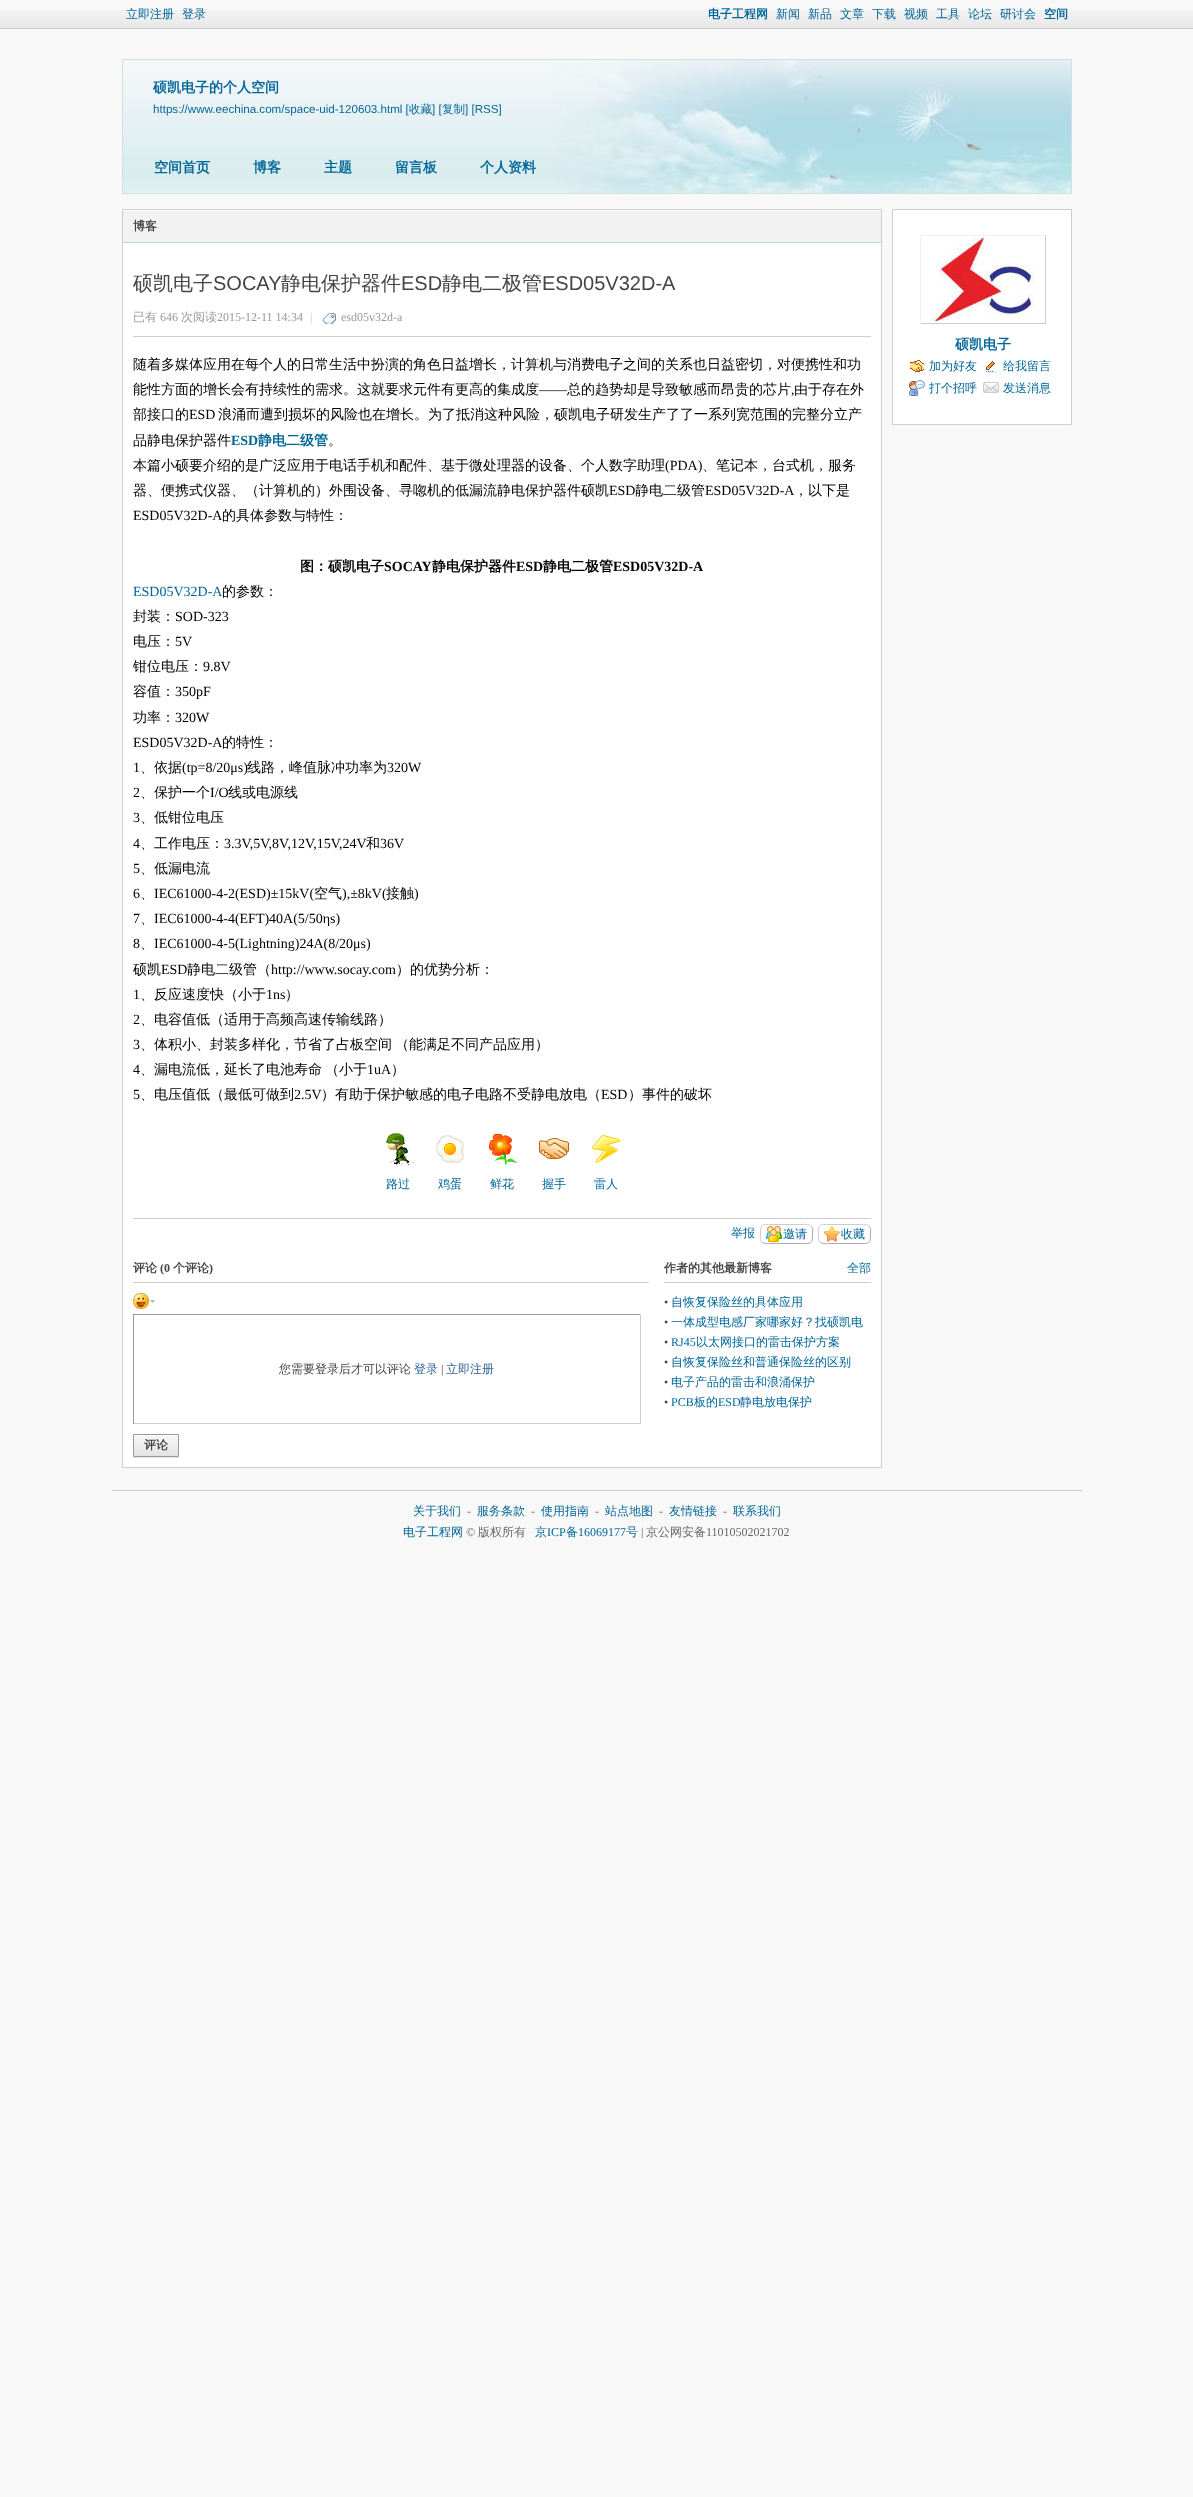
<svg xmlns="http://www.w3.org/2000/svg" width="1193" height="2497">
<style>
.a{font:500 12px WenQuanYi Zen Hei;fill:#069}
.b{font:bold 12px WenQuanYi Zen Hei;fill:#069}
.c{font:bold 14px WenQuanYi Zen Hei;fill:#069}
.d{font:11.6px Liberation Sans;fill:#069}
.e{font:500 11.6px WenQuanYi Zen Hei;fill:#069}
.f{font:bold 12px WenQuanYi Zen Hei;fill:#444}
.g{font:500 20px WenQuanYi Zen Hei;fill:#444}
.h{font:20px Liberation Sans;fill:#444}
.i{font:500 12px WenQuanYi Zen Hei;fill:#999}
.j{font:12px Liberation Serif;fill:#999}
.k{font:12px Liberation Serif;fill:#ccc}
.l{font:500 14px WenQuanYi Zen Hei;fill:#000}
.m{font:14px Liberation Serif;fill:#000}
.n{font:bold 14px Liberation Serif;fill:#069}
.o{font:bold 14px WenQuanYi Zen Hei;fill:#000}
.p{font:bold 14px Liberation Serif;fill:#000}
.q{font:14px Liberation Serif;fill:#069}
.r{font:bold 12px Liberation Serif;fill:#444}
.s{font:500 12px WenQuanYi Zen Hei;fill:#444}
.t{font:500 12px WenQuanYi Zen Hei;fill:#369}
.u{font:12px Liberation Serif;fill:#444}
.v{font:12px Liberation Serif;fill:#069}
.w{font:12px Liberation Serif;fill:#666}
.x{font:500 12px WenQuanYi Zen Hei;fill:#666}
</style>
<rect width="100%" height="100%" fill="#f8f8f8"/>
<image href="1.png" x="0" y="10" width="1193" height="18"/>
<path fill="#cdcdcd" d="M0 28h1193v1H0z"/>
<image href="2.png" x="123" y="60" width="948" height="133"/>
<path fill="none" stroke="#d3dfdf" d="M122.5 59.5h949v134H122.5z"/>
<path fill="#fff" d="M123 243h758v1224H123z"/>
<path fill="none" stroke="#cdcdcd" d="M122.5 209.5h759v1258H122.5z"/>
<path fill="#f2f2f2" d="M123 211h758v31H123z"/>
<path fill="#fff" d="M123 210h758v1H123z"/>
<path fill="#c2d5e3" d="M123 242h758v1H123z"/>
<path fill="#cdcdcd" d="M133 336h738v1H133z"/>
<image href="3.png" x="322" y="313" width="14" height="11"/>
<image href="4.png" x="386" y="1133" width="28" height="32"/>
<image href="5.png" x="436" y="1135" width="28" height="28"/>
<image href="6.png" x="489" y="1134" width="28" height="31"/>
<image href="7.png" x="539" y="1138" width="30" height="21"/>
<image href="8.png" x="592" y="1135" width="29" height="28"/>
<path fill="#cdcdcd" d="M133 1218h738v1H133z"/>
<image href="9.png" x="766" y="1226" width="16" height="16"/>
<path fill="none" stroke="#a9a9a9" d="M811 1226c2.5 2 1.5 5.5 1.5 8c0 10.5-1 9.5-11.5 9.5h-29c-2 0-7.5 1-10-1.5"/>
<path fill="none" stroke="#ccc" d="M762 1242c-2.5-2-1.5-5.5-1.5-8c0-10.5 1-9.5 11.5-9.5h29c2 0 7.5-1 10 1.5"/>
<image href="10.png" x="824" y="1226" width="16" height="16"/>
<path fill="none" stroke="#a9a9a9" d="M869 1226c2.5 2 1.5 5.5 1.5 8c0 10.5-1 9.5-11.5 9.5h-29c-2 0-7.5 1-10-1.5"/>
<path fill="none" stroke="#ccc" d="M820 1242c-2.5-2-1.5-5.5-1.5-8c0-10.5 1-9.5 11.5-9.5h29c2 0 7.5-1 10 1.5"/>
<path fill="#cdcdcd" d="M133 1282h516v1H133z"/>
<image href="11.png" x="133" y="1293" width="22" height="16"/>
<path fill="#999" d="M133 1314h508v1H133z"/>
<path fill="#ccc" d="M640 1314h1v110H640z"/>
<path fill="#ccc" d="M133 1423h508v1H133z"/>
<path fill="#999" d="M133 1314h1v110H133z"/>
<path fill="#e5e5e5" d="M133 1457h46v1H133z"/>
<image href="12.png" x="134" y="1435" width="44" height="21"/>
<path fill="none" stroke="#999" d="M133.5 1434.5h45v22H133.5z"/>
<path fill="#cdcdcd" d="M664 1282h207v1H664z"/>
<path fill="#fff" stroke="#cdcdcd" d="M892.5 209.5h179v215H892.5z"/>
<path fill="#f2f2f2" d="M920 235h126v1H920z"/>
<path fill="#cdcdcd" d="M1045 235h1v89H1045z"/>
<path fill="#cdcdcd" d="M920 323h126v1H920z"/>
<path fill="#f2f2f2" d="M920 235h1v89H920z"/>
<image href="13.png" x="931" y="238" width="104" height="83"/>
<image href="14.png" x="910" y="360" width="14" height="12"/>
<image href="15.png" x="986" y="361" width="11" height="12"/>
<image href="16.png" x="909" y="380" width="16" height="16"/>
<image href="17.png" x="983" y="382" width="16" height="11"/>
<path fill="#ccc" d="M112 1490h970v1H112z"/>
<text class="a" x="126" y="18">立即注册</text>
<text class="a" x="182" y="18">登录</text>
<text class="b" x="708" y="18">电子工程网</text>
<text class="a" x="776" y="18">新闻</text>
<text class="a" x="808" y="18">新品</text>
<text class="a" x="840" y="18">文章</text>
<text class="a" x="872" y="18">下载</text>
<text class="a" x="904" y="18">视频</text>
<text class="a" x="936" y="18">工具</text>
<text class="a" x="968" y="18">论坛</text>
<text class="a" x="1000" y="18">研讨会</text>
<text class="b" x="1044" y="18">空间</text>
<text class="c" x="153" y="92">硕凯电子的个人空间</text>
<text class="d" x="153" y="113">https://www.eechina.com/space-uid-120603.html [</text>
<text class="e" x="409" y="113">收藏</text>
<text class="d" x="432" y="113">] [</text>
<text class="e" x="442" y="113">复制</text>
<text class="d" x="465" y="113">] [RSS]</text>
<text class="c" x="154" y="172">空间首页</text>
<text class="c" x="253" y="172">博客</text>
<text class="c" x="324" y="172">主题</text>
<text class="c" x="395" y="172">留言板</text>
<text class="c" x="480" y="172">个人资料</text>
<text class="f" x="133" y="230">博客</text>
<text class="g" x="133" y="290">硕凯电子</text>
<text class="h" x="213" y="290">SOCAY</text>
<text class="g" x="281" y="290">静电保护器件</text>
<text class="h" x="401" y="290">ESD</text>
<text class="g" x="442" y="290">静电二极管</text>
<text class="h" x="542" y="290">ESD05V32D-A</text>
<text class="i" x="133" y="321">已有</text>
<text class="j" x="160" y="321">646</text>
<text class="i" x="181" y="321">次阅读</text>
<text class="j" x="217" y="321">2015-12-11 14:34</text>
<text class="k" x="310" y="321">|</text>
<text class="j" x="341" y="321">esd05v32d-a</text>
<text class="l" x="133" y="369">随着多媒体应用在每个人的日常生活中扮演的角色日益增长，计算机与消费电子之间的关系也日益密切，对便携性和功</text>
<text class="l" x="133" y="394">能性方面的增长会有持续性的需求。这就要求元件有更高的集成度</text>
<text class="m" x="539" y="394">——</text>
<text class="l" x="567" y="394">总的趋势却是导致敏感而昂贵的芯片</text>
<text class="l" x="794" y="394">由于存在外</text>
<text class="m" x="791" y="394">,</text>
<text class="l" x="133" y="419">部接口的</text>
<text class="m" x="189" y="419">ESD</text>
<text class="l" x="218" y="419">浪涌而遭到损坏的风险也在增长。为了抵消这种风险，硕凯电子研发生产了了一系列宽范围的完整分立产</text>
<text class="l" x="133" y="445">品静电保护器件</text>
<text class="n" x="231" y="445">ESD</text>
<text class="c" x="258" y="445">静电二级管</text>
<text class="l" x="328" y="445">。</text>
<text class="l" x="133" y="470">本篇小硕要介绍的是广泛应用于电话手机和配件、基于微处理器的设备、个人数字助理</text>
<text class="m" x="665" y="470">(PDA)</text>
<text class="l" x="702" y="470">、笔记本，台式机，服务</text>
<text class="l" x="133" y="495">器、便携式仪器、（计算机的）外围设备、寻唿机的低漏流静电保护器件硕凯</text>
<text class="m" x="609" y="495">ESD</text>
<text class="l" x="635" y="495">静电二级管</text>
<text class="m" x="705" y="495">ESD05V32D-A</text>
<text class="l" x="794" y="495">，以下是</text>
<text class="m" x="133" y="520">ESD05V32D-A</text>
<text class="l" x="222" y="520">的具体参数与特性：</text>
<text class="o" x="300" y="571">图：硕凯电子</text>
<text class="p" x="384" y="571">SOCAY</text>
<text class="o" x="432" y="571">静电保护器件</text>
<text class="p" x="516" y="571">ESD</text>
<text class="o" x="543" y="571">静电二极管</text>
<text class="p" x="613" y="571">ESD05V32D-A</text>
<text class="q" x="133" y="596">ESD05V32D-A</text>
<text class="l" x="222" y="596">的参数：</text>
<text class="l" x="133" y="621">封装：</text>
<text class="m" x="175" y="621">SOD-323</text>
<text class="l" x="133" y="646">电压：</text>
<text class="m" x="175" y="646">5V</text>
<text class="l" x="133" y="671">钳位电压：</text>
<text class="m" x="203" y="671">9.8V</text>
<text class="l" x="133" y="696">容值：</text>
<text class="m" x="175" y="696">350pF</text>
<text class="l" x="133" y="722">功率：</text>
<text class="m" x="175" y="722">320W</text>
<text class="m" x="133" y="747">ESD05V32D-A</text>
<text class="l" x="222" y="747">的特性：</text>
<text class="m" x="133" y="772">1</text>
<text class="l" x="140" y="772">、依据</text>
<text class="m" x="182" y="772">(tp=8/20μs)</text>
<text class="l" x="247" y="772">线路，峰值脉冲功率为</text>
<text class="m" x="387" y="772">320W</text>
<text class="m" x="133" y="797">2</text>
<text class="l" x="140" y="797">、保护一个</text>
<text class="m" x="210" y="797">I/O</text>
<text class="l" x="228" y="797">线或电源线</text>
<text class="m" x="133" y="822">3</text>
<text class="l" x="140" y="822">、低钳位电压</text>
<text class="m" x="133" y="848">4</text>
<text class="l" x="140" y="848">、工作电压：</text>
<text class="m" x="224" y="848">3.3V,5V,8V,12V,15V,24V</text>
<text class="l" x="366" y="848">和</text>
<text class="m" x="380" y="848">36V</text>
<text class="m" x="133" y="873">5</text>
<text class="l" x="140" y="873">、低漏电流</text>
<text class="m" x="133" y="898">6</text>
<text class="l" x="140" y="898">、</text>
<text class="m" x="154" y="898">IEC61000-4-2(ESD)±15kV(</text>
<text class="l" x="314" y="898">空气</text>
<text class="m" x="342" y="898">),±8kV(</text>
<text class="l" x="386" y="898">接触</text>
<text class="m" x="414" y="898">)</text>
<text class="m" x="133" y="923">7</text>
<text class="l" x="140" y="923">、</text>
<text class="m" x="154" y="923">IEC61000-4-4(EFT)40A(5/50ηs)</text>
<text class="m" x="133" y="948">8</text>
<text class="l" x="140" y="948">、</text>
<text class="m" x="154" y="948">IEC61000-4-5(Lightning)24A(8/20μs)</text>
<text class="l" x="133" y="974">硕凯</text>
<text class="m" x="161" y="974">ESD</text>
<text class="l" x="187" y="974">静电二级管（</text>
<text class="m" x="271" y="974">http://www.socay.com</text>
<text class="l" x="396" y="974">）的优势分析：</text>
<text class="m" x="133" y="999">1</text>
<text class="l" x="140" y="999">、反应速度快（小于</text>
<text class="m" x="266" y="999">1ns</text>
<text class="l" x="285" y="999">）</text>
<text class="m" x="133" y="1024">2</text>
<text class="l" x="140" y="1024">、电容值低（适用于高频高速传输线路）</text>
<text class="m" x="133" y="1049">3</text>
<text class="l" x="140" y="1049">、体积小、封装多样化，节省了占板空间</text>
<text class="l" x="395" y="1049">（能满足不同产品应用）</text>
<text class="m" x="133" y="1074">4</text>
<text class="l" x="140" y="1074">、漏电流低，延长了电池寿命</text>
<text class="l" x="325" y="1074">（小于</text>
<text class="m" x="367" y="1074">1uA</text>
<text class="l" x="391" y="1074">）</text>
<text class="m" x="133" y="1099">5</text>
<text class="l" x="140" y="1099">、电压值低（最低可做到</text>
<text class="m" x="294" y="1099">2.5V</text>
<text class="l" x="321" y="1099">）有助于保护敏感的电子电路不受静电放电（</text>
<text class="m" x="601" y="1099">ESD</text>
<text class="l" x="628" y="1099">）事件的破坏</text>
<text class="a" x="386" y="1188">路过</text>
<text class="a" x="438" y="1188">鸡蛋</text>
<text class="a" x="490" y="1188">鲜花</text>
<text class="a" x="542" y="1188">握手</text>
<text class="a" x="594" y="1188">雷人</text>
<text class="a" x="731" y="1237">举报</text>
<text class="a" x="783" y="1238">邀请</text>
<text class="a" x="841" y="1238">收藏</text>
<text class="f" x="133" y="1272">评论</text>
<text class="r" x="160" y="1272">(0</text>
<text class="f" x="173" y="1272">个评论</text>
<text class="r" x="209" y="1272">)</text>
<text class="s" x="279" y="1373">您需要登录后才可以评论</text>
<text class="t" x="414" y="1373">登录</text>
<text class="u" x="441" y="1373">|</text>
<text class="t" x="446" y="1373">立即注册</text>
<text class="f" x="144" y="1449">评论</text>
<text class="f" x="664" y="1272">作者的其他最新博客</text>
<text class="a" x="847" y="1272">全部</text>
<text class="u" x="664" y="1306">•</text>
<text class="a" x="671" y="1306">自恢复保险丝的具体应用</text>
<text class="u" x="664" y="1326">•</text>
<text class="a" x="671" y="1326">一体成型电感厂家哪家好？找硕凯电</text>
<text class="u" x="664" y="1346">•</text>
<text class="v" x="671" y="1346">RJ45</text>
<text class="a" x="696" y="1346">以太网接口的雷击保护方案</text>
<text class="u" x="664" y="1366">•</text>
<text class="a" x="671" y="1366">自恢复保险丝和普通保险丝的区别</text>
<text class="u" x="664" y="1386">•</text>
<text class="a" x="671" y="1386">电子产品的雷击和浪涌保护</text>
<text class="u" x="664" y="1406">•</text>
<text class="v" x="671" y="1406">PCB</text>
<text class="a" x="694" y="1406">板的</text>
<text class="v" x="718" y="1406">ESD</text>
<text class="a" x="740" y="1406">静电放电保护</text>
<text class="c" x="955" y="349">硕凯电子</text>
<text class="a" x="929" y="370">加为好友</text>
<text class="a" x="1003" y="370">给我留言</text>
<text class="a" x="929" y="392">打个招呼</text>
<text class="a" x="1003" y="392">发送消息</text>
<text class="a" x="413" y="1515">关于我们</text>
<text class="w" x="467" y="1515">-</text>
<text class="a" x="477" y="1515">服务条款</text>
<text class="w" x="531" y="1515">-</text>
<text class="a" x="541" y="1515">使用指南</text>
<text class="w" x="595" y="1515">-</text>
<text class="a" x="605" y="1515">站点地图</text>
<text class="w" x="659" y="1515">-</text>
<text class="a" x="669" y="1515">友情链接</text>
<text class="w" x="723" y="1515">-</text>
<text class="a" x="733" y="1515">联系我们</text>
<text class="a" x="403" y="1536">电子工程网</text>
<text class="w" x="466" y="1536">©</text>
<text class="x" x="478" y="1536">版权所有</text>
<text class="a" x="535" y="1536">京</text>
<text class="v" x="547" y="1536">ICP</text>
<text class="a" x="566" y="1536">备</text>
<text class="v" x="578" y="1536">16069177</text>
<text class="a" x="626" y="1536">号</text>
<text class="w" x="641" y="1536">|</text>
<text class="x" x="646" y="1536">京公网安备</text>
<text class="w" x="706" y="1536">11010502021702</text>
</svg>
